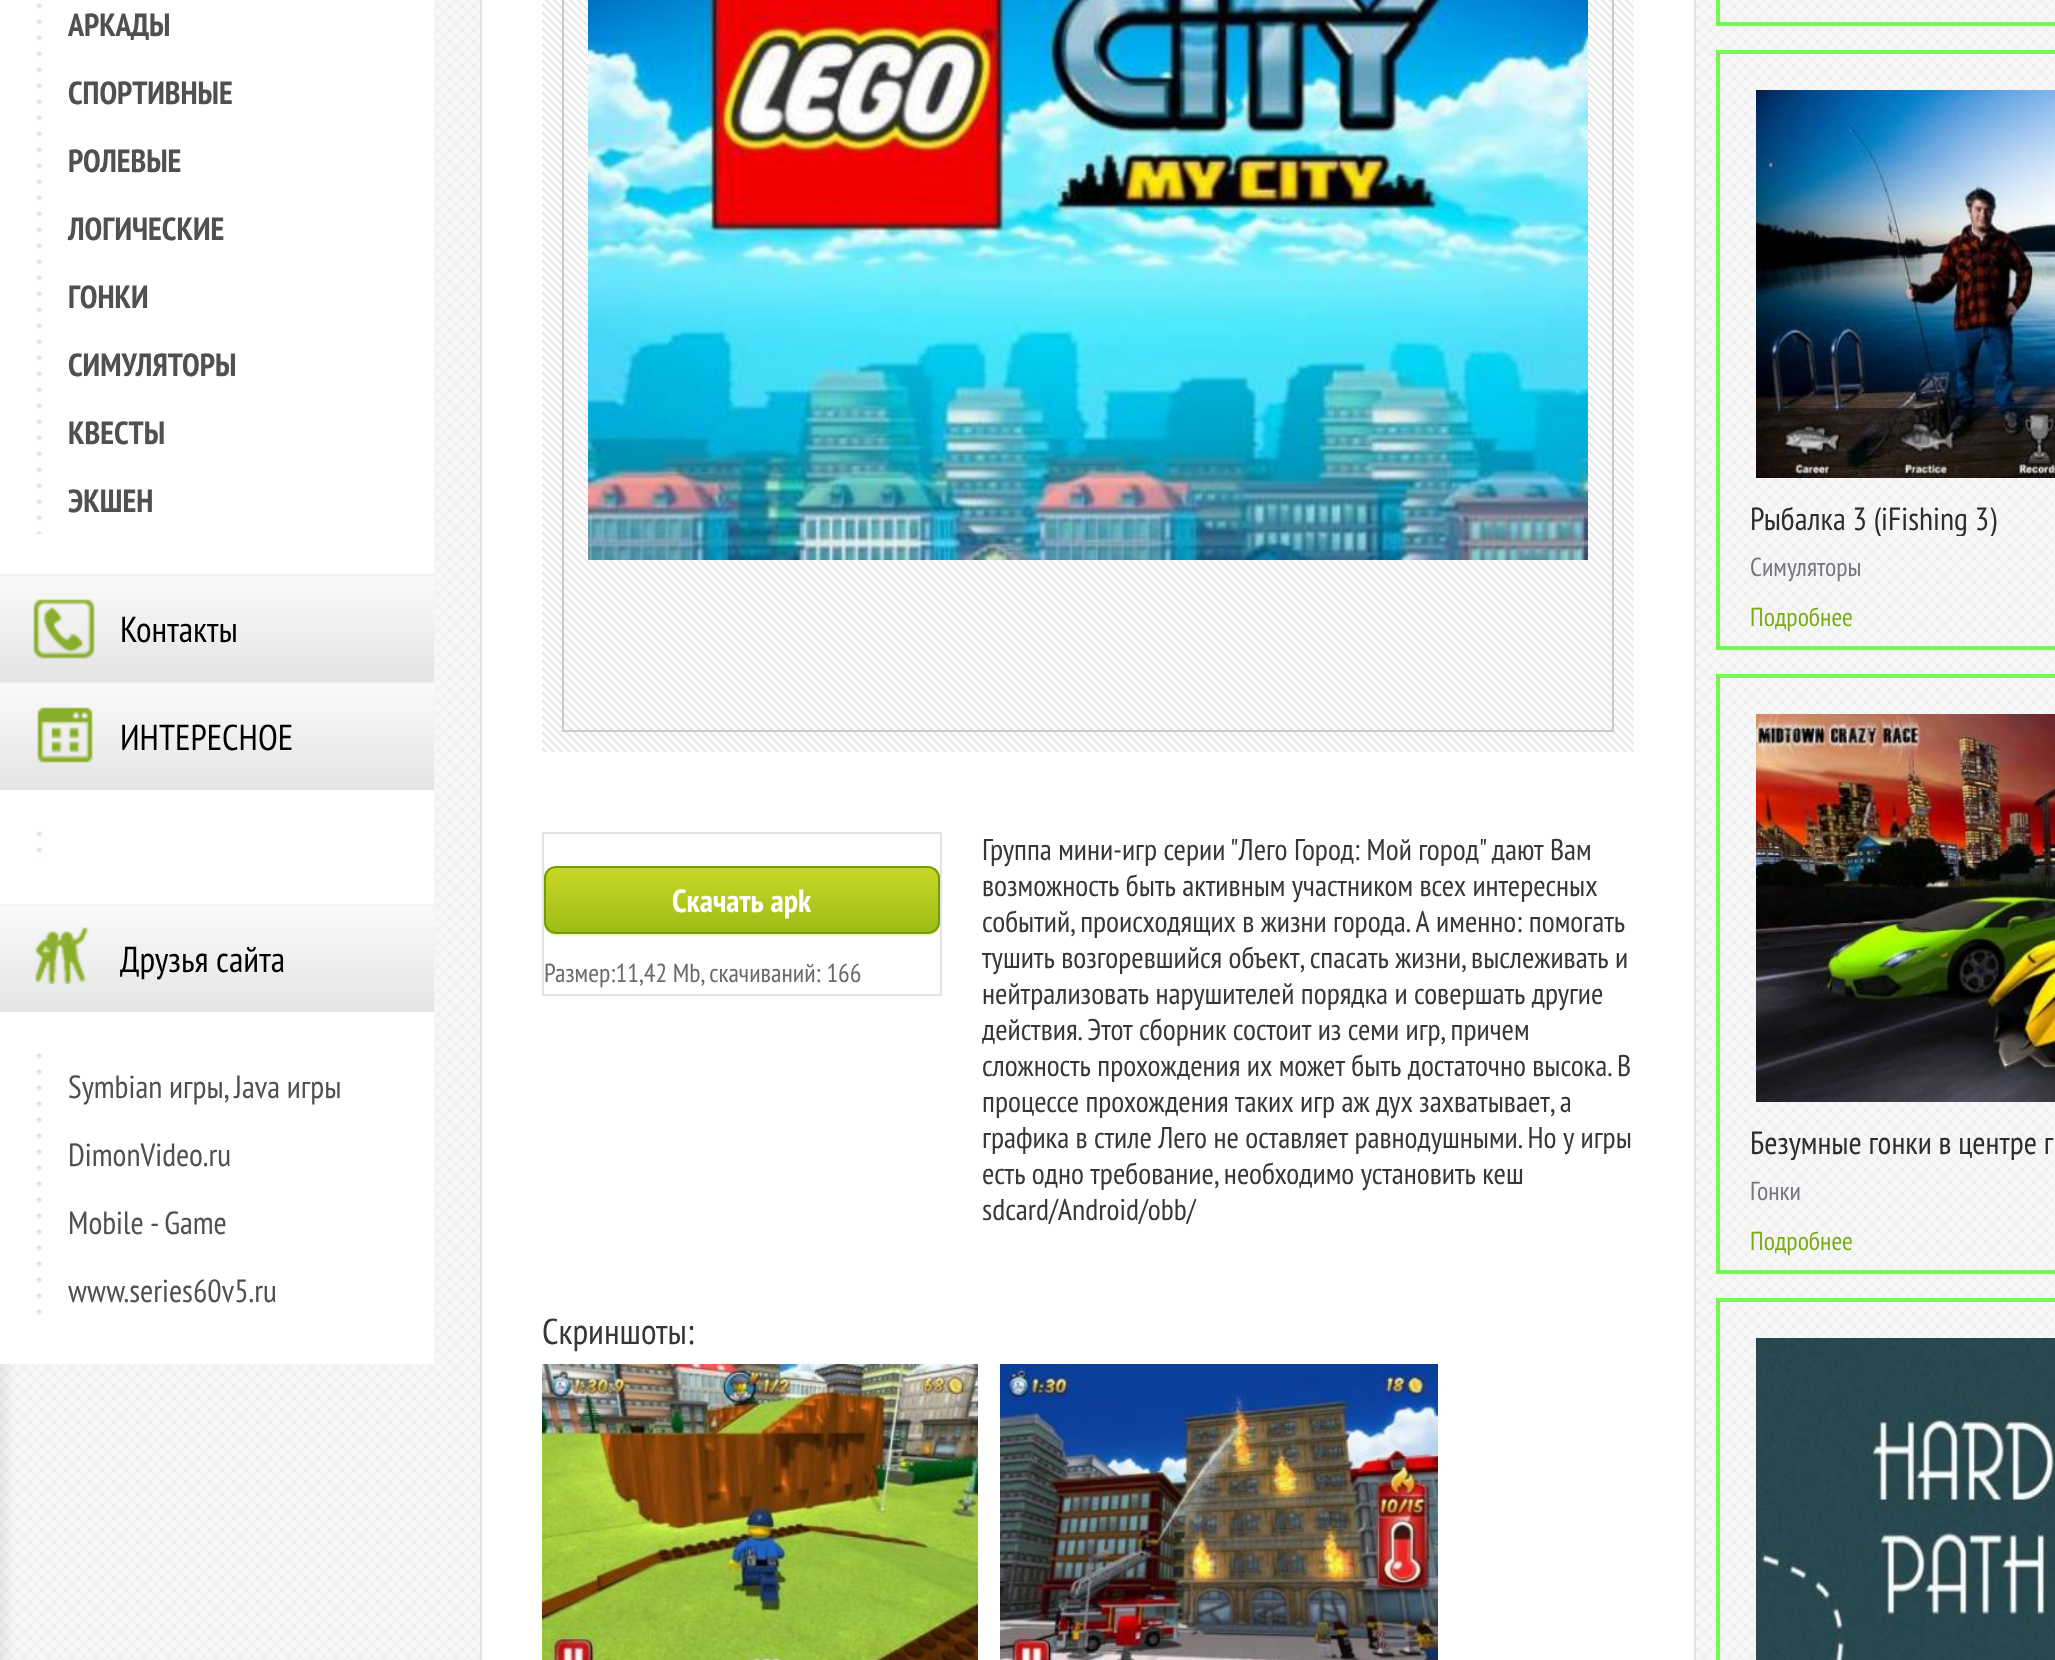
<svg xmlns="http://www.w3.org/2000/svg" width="2055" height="1660">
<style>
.a{font:bold 32px PT Sans Narrow;fill:#505050}
.b{font:36px PT Sans Narrow;fill:#000}
.c{font:32px PT Sans Narrow;fill:#505050}
.d{font:bold 32px PT Sans Narrow;fill:#fff}
.e{font:26px PT Sans Narrow;fill:#6a6a6a}
.f{font:30px PT Sans Narrow;fill:#373737}
.g{font:36px PT Sans Narrow;fill:#373737}
.h{font:32px PT Sans Narrow;fill:#2d2d2d}
.i{font:26px PT Sans Narrow;fill:#75777e}
.j{font:26px PT Sans Narrow;fill:#7aac19}
</style>
<defs>
<linearGradient id="g1" gradientUnits="userSpaceOnUse" x1="217" y1="576" x2="217" y2="682"><stop offset="0.05" stop-color="#f9f9f9"/><stop offset="1" stop-color="#e4e4e4"/></linearGradient>
<linearGradient id="g2" gradientUnits="userSpaceOnUse" x1="217" y1="684" x2="217" y2="790"><stop offset="0.05" stop-color="#f9f9f9"/><stop offset="1" stop-color="#e4e4e4"/></linearGradient>
<linearGradient id="g3" gradientUnits="userSpaceOnUse" x1="217" y1="906" x2="217" y2="1012"><stop offset="0.05" stop-color="#f9f9f9"/><stop offset="1" stop-color="#e4e4e4"/></linearGradient>
<clipPath id="clip1"><rect x="544" y="866" width="396" height="68" rx="12"/></clipPath>
<linearGradient id="g4" gradientUnits="userSpaceOnUse" x1="742" y1="868" x2="742" y2="932"><stop offset="0.05" stop-color="#c7d626"/><stop offset="1" stop-color="#9ebc17"/></linearGradient>
<clipPath id="clip2"><path d="M1750 502h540v34H1750z"/></clipPath>
<clipPath id="clip3"><path d="M1750 1126h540v34H1750z"/></clipPath>
</defs>
<rect width="100%" height="100%" fill="#fff"/>
<image href="1.png" x="0" y="0" width="2055" height="1660"/>
<image href="2.png" x="0" y="1364" width="12" height="296"/>
<path fill="#fff" d="M0 0h434v1364H0z"/>
<image href="3.png" x="36" y="3" width="6" height="531"/>
<path fill="#f3f3f3" d="M0 574h434v2H0z"/>
<path fill="url(#g1)" d="M0 576h434v106H0z"/>
<image href="4.png" x="33" y="599" width="62" height="60"/>
<path fill="#f3f3f3" d="M0 682h434v2H0z"/>
<path fill="url(#g2)" d="M0 684h434v106H0z"/>
<image href="5.png" x="37" y="707" width="56" height="56"/>
<image href="6.png" x="36" y="831" width="6" height="33"/>
<path fill="#f3f3f3" d="M0 904h434v2H0z"/>
<path fill="url(#g3)" d="M0 906h434v106H0z"/>
<image href="7.png" x="35" y="927" width="54" height="57"/>
<image href="8.png" x="36" y="1053" width="6" height="262"/>
<path fill="#fff" stroke="#e3e3e3" stroke-width="2" d="M481 -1h1214v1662H481z"/>
<image href="9.png" x="542" y="0" width="1092" height="752"/>
<path fill="none" stroke="#ccc" stroke-width="2" d="M563 -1h1050v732H563z"/>
<image href="10.png" x="588" y="0" width="1000" height="560"/>
<path fill="none" stroke="#e3e3e3" stroke-width="2" d="M543 833h398v162H543z"/>
<path fill="#ebffba" d="M544 922c0 6 3 12 10 14h374c8 0 12-7 12-14c0 7-5 12-12 12h-372c-7 0-12-5-12-12z"/>
<g clip-path="url(#clip1)">
<path fill="url(#g4)" d="M544 868h396v64H544z"/>
</g>
<rect fill="none" stroke="#749e00" stroke-width="2" x="545" y="867" width="394" height="66" rx="11"/>
<image href="11.png" x="542" y="1364" width="436" height="296"/>
<image href="12.png" x="1000" y="1364" width="438" height="296"/>
<path fill="none" stroke="#71fa52" stroke-width="4" d="M1718 -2h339v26H1718z"/>
<path fill="none" stroke="#71fa52" stroke-width="4" d="M1718 52h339v596H1718z"/>
<image href="13.png" x="1756" y="90" width="299" height="388"/>
<path fill="none" stroke="#71fa52" stroke-width="4" d="M1718 676h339v596H1718z"/>
<image href="14.png" x="1756" y="714" width="299" height="388"/>
<path fill="none" stroke="#71fa52" stroke-width="4" d="M1718 1300h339v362H1718z"/>
<image href="15.png" x="1756" y="1338" width="299" height="322"/>
<text class="a" x="68" y="36">АРКАДЫ</text>
<text class="a" x="68" y="104">СПОРТИВНЫЕ</text>
<text class="a" x="68" y="172">РОЛЕВЫЕ</text>
<text class="a" x="68" y="240">ЛОГИЧЕСКИЕ</text>
<text class="a" x="68" y="308">ГОНКИ</text>
<text class="a" x="68" y="376">СИМУЛЯТОРЫ</text>
<text class="a" x="68" y="444">КВЕСТЫ</text>
<text class="a" x="68" y="512">ЭКШЕН</text>
<text class="b" x="120" y="642">Контакты</text>
<text class="b" x="120" y="750">ИНТЕРЕСНОЕ</text>
<text class="b" x="120" y="972">Друзья сайта</text>
<text class="c" x="68" y="1098">Symbian игры, Java игры</text>
<text class="c" x="68" y="1166">DimonVideo.ru</text>
<text class="c" x="68" y="1234">Mobile - Game</text>
<text class="c" x="68" y="1302">www.series60v5.ru</text>
<text class="d" x="672" y="912" word-spacing="1">Скачать apk</text>
<text class="e" x="544" y="982">Размер:11,42 Mb, cкачиваний: 166</text>
<text class="f" x="982" y="860">Группа мини-игр серии "Лего Город: Мой город" дают Вам</text>
<text class="f" x="982" y="896">возможность быть активным участником всех интересных</text>
<text class="f" x="982" y="932">событий, происходящих в жизни города. А именно: помогать</text>
<text class="f" x="982" y="968">тушить возгоревшийся объект, спасать жизни, выслеживать и</text>
<text class="f" x="982" y="1004">нейтрализовать нарушителей порядка и совершать другие</text>
<text class="f" x="982" y="1040">действия. Этот сборник состоит из семи игр, причем</text>
<text class="f" x="982" y="1076">сложность прохождения их может быть достаточно высока. В</text>
<text class="f" x="982" y="1112">процессе прохождения таких игр аж дух захватывает, а</text>
<text class="f" x="982" y="1148">графика в стиле Лего не оставляет равнодушными. Но у игры</text>
<text class="f" x="982" y="1184">есть одно требование, необходимо установить кеш</text>
<text class="f" x="982" y="1220">sdcard/Android/obb/</text>
<text class="g" x="542" y="1344">Скриншоты:</text>
<g clip-path="url(#clip2)">
<text class="h" x="1750" y="530">Рыбалка 3 (iFishing 3)</text>
</g>
<text class="i" x="1750" y="576">Симуляторы</text>
<text class="j" x="1750" y="626">Подробнее</text>
<g clip-path="url(#clip3)">
<text class="h" x="1750" y="1154">Безумные гонки в центре г</text>
</g>
<text class="i" x="1750" y="1200">Гонки</text>
<text class="j" x="1750" y="1250">Подробнее</text>
</svg>
